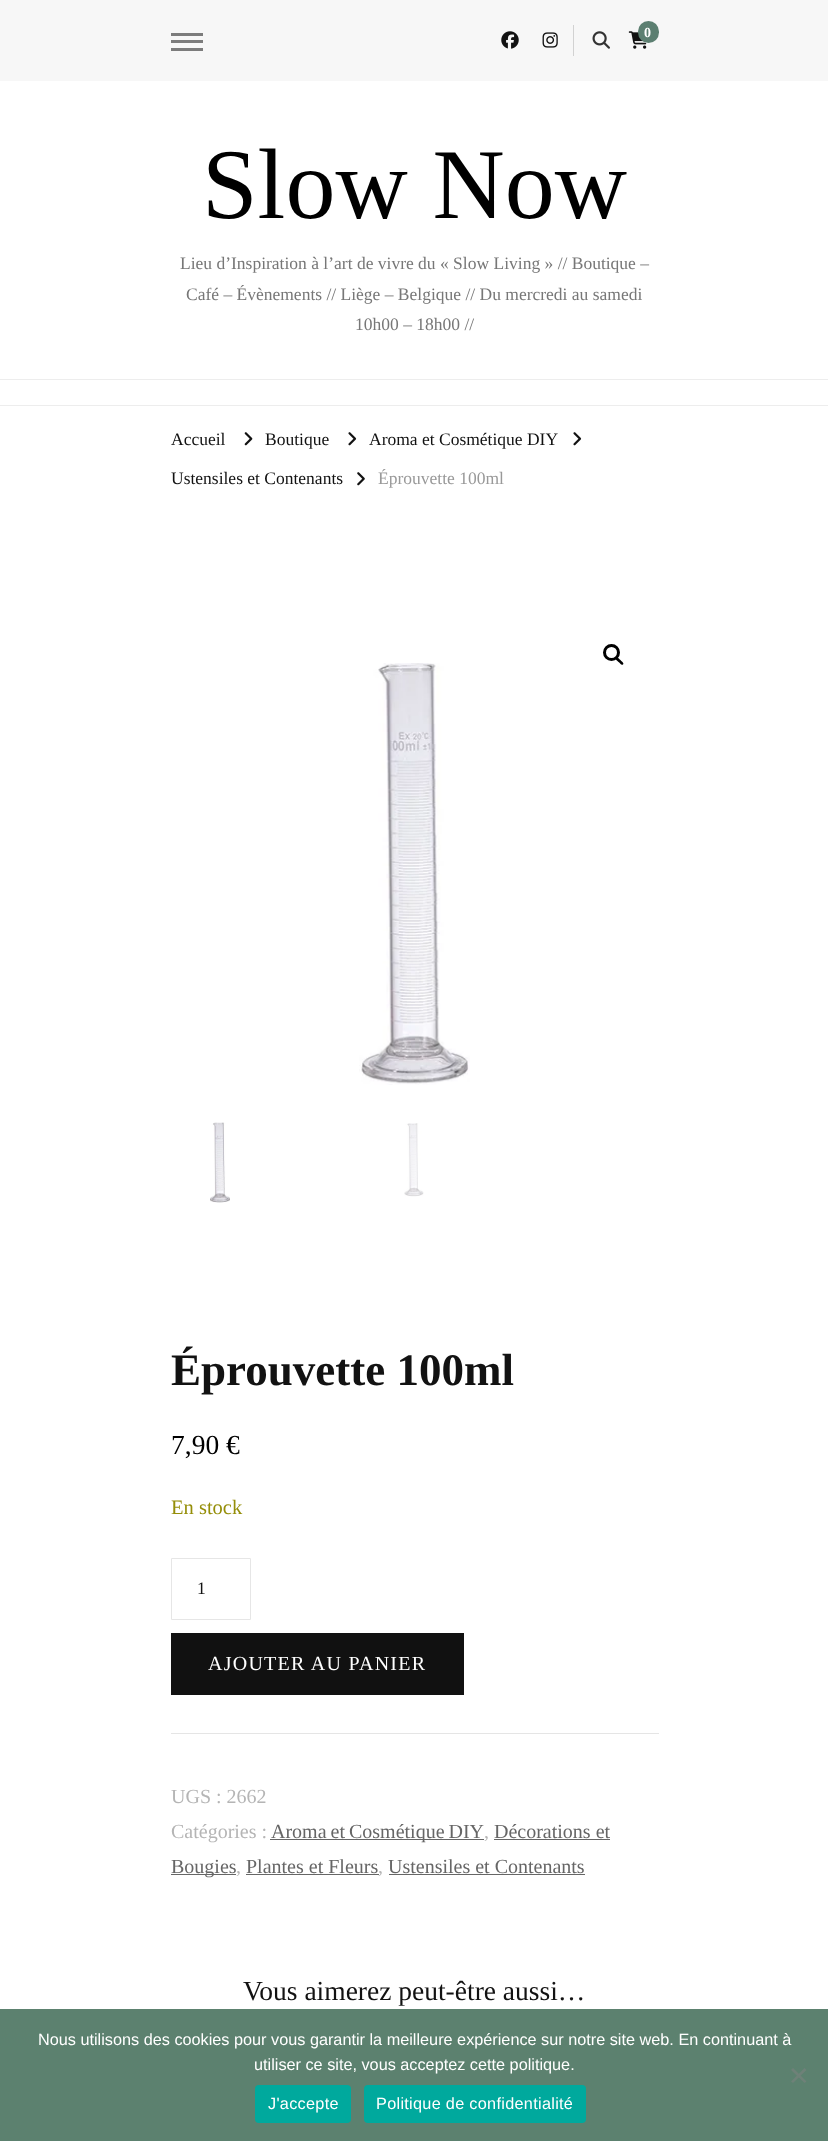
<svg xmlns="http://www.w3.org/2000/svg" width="828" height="2141">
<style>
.a{font:bold 14px Liberation Serif;fill:#fff}
.b{font:100px Liberation Serif;fill:#000}
.c{font:17.5px Liberation Serif;fill:#777}
.d{font:17.5px Liberation Serif;fill:#121212}
.e{font:17.5px Liberation Serif;fill:#999}
.f{font:bold 45px Liberation Serif;fill:#121212}
.g{font:27.5px Liberation Serif;fill:#000}
.h{font:20.5px Liberation Serif;fill:#958e09}
.i{font:20px Liberation Serif;letter-spacing:1.25px;fill:#fff}
.j{font:20px Liberation Serif;fill:#b5b5b5}
.k{font:20px Liberation Serif;fill:#666}
.l{font:27.5px Liberation Serif;fill:#121212}
.m{font:16.25px Liberation Sans;fill:#fff}
.n{font:16.25px Liberation Sans;letter-spacing:0.3px;fill:#fff}
</style>
<rect width="100%" height="100%" fill="#fff"/>
<path fill="#f7f7f7" d="M0 0h828v81H0z"/>
<path fill="#7c7c7c" d="M171 33h32v3H171z"/>
<path fill="#7c7c7c" d="M171 40h32v3H171z"/>
<path fill="#7c7c7c" d="M171 48h32v3H171z"/>
<image href="1.png" x="501" y="31" width="18" height="18"/>
<image href="2.png" x="542" y="32" width="16" height="16"/>
<path fill="#d2d2d2" d="M573 25h1v31H573z"/>
<image href="3.png" x="592" y="31" width="18" height="18"/>
<image href="4.png" x="628" y="31" width="19" height="18"/>
<rect fill="#5c7f71" x="638" y="21" width="21" height="22" rx="10.5"/>
<path fill="#ededed" d="M0 379h828v1H0z"/>
<path fill="#ededed" d="M0 405h828v1H0z"/>
<image href="5.png" x="244" y="432" width="9" height="14"/>
<image href="6.png" x="348" y="432" width="9" height="14"/>
<image href="6.png" x="573" y="432" width="9" height="14"/>
<image href="7.png" x="357" y="472" width="8" height="14"/>
<circle fill="none" stroke="#000" stroke-width="3" cx="611.5" cy="652.5" r="7"/>
<path fill="#000" d="M616 657.5c1.5-1.5 3.5 2 4.5 2.5c.5 1 4 3 2.5 4.5c-1.5 1.5-3.5-2-4.5-2.5c-1-1-4-3-2.5-4.5z"/>
<image href="8.png" x="359" y="663" width="111" height="422"/>
<image href="9.png" x="210" y="1122" width="20" height="81"/>
<image href="10.png" x="404" y="1123" width="20" height="74"/>
<path fill="#e5e5e5" d="M171 1733h488v1H171z"/>
<path fill="none" stroke="#e6e6e6" d="M171.5 1558.5h79v61H171.5z"/>
<path fill="#111" d="M171 1633h293v62H171z"/>
<path fill="#666" d="M270 1839h214v1H270z"/>
<path fill="#666" d="M494 1839h116v1H494z"/>
<path fill="#666" d="M171 1874h65v1H171z"/>
<path fill="#666" d="M246 1874h133v1H246z"/>
<path fill="#666" d="M389 1874h196v1H389z"/>
<path fill="#5c816f" d="M0 2009h828v132H0z"/>
<path fill="#6e8178" d="M804.5 2068l2 2l-13.5 13l-2-1.5z"/>
<path fill="#6e8178" d="M791 2070l2-2l13.5 13.5l-2 1.5z"/>
<rect fill="#00a99d" x="255" y="2085" width="96" height="38" rx="4"/>
<rect fill="#00a99d" x="364" y="2085" width="222" height="38" rx="4"/>
<text class="a" x="644" y="37">0</text>
<text class="b" x="202" y="218">Slow Now</text>
<text class="c" x="180" y="269">Lieu d’Inspiration à l’art de vivre du « Slow Living » // Boutique –</text>
<text class="c" x="186" y="300">Café – Évènements // Liège – Belgique // Du mercredi au samedi</text>
<text class="c" x="355" y="330">10h00 – 18h00 //</text>
<text class="d" x="171" y="445">Accueil</text>
<text class="d" x="265" y="445">Boutique</text>
<text class="d" x="369" y="445">Aroma et Cosmétique DIY</text>
<text class="d" x="171" y="484">Ustensiles et Contenants</text>
<text class="e" x="378" y="484">Éprouvette 100ml</text>
<text class="f" x="171" y="1385">Éprouvette 100ml</text>
<text class="g" x="171" y="1454">7,90 €</text>
<text class="h" x="171" y="1514">En stock</text>
<text class="d" x="197" y="1594">1</text>
<text class="i" x="208" y="1670">AJOUTER AU PANIER</text>
<text class="j" x="171" y="1803">UGS : 2662</text>
<text class="j" x="171" y="1838">Catégories :</text>
<text class="k" x="271" y="1838" word-spacing="-1">Aroma et Cosmétique DIY</text>
<text class="j" x="484" y="1838">,</text>
<text class="k" x="494" y="1838">Décorations et</text>
<text class="k" x="171" y="1873">Bougies</text>
<text class="j" x="236" y="1873">,</text>
<text class="k" x="246" y="1873">Plantes et Fleurs</text>
<text class="j" x="378" y="1873">,</text>
<text class="k" x="388" y="1873">Ustensiles et Contenants</text>
<text class="l" x="243" y="2000">Vous aimerez peut-être aussi…</text>
<text class="m" x="38" y="2045">Nous utilisons des cookies pour vous garantir la meilleure expérience sur notre site web. En continuant à</text>
<text class="m" x="254" y="2070">utiliser ce site, vous acceptez cette politique.</text>
<text class="n" x="268" y="2109">J'accepte</text>
<text class="n" x="376" y="2109">Politique de confidentialité</text>
</svg>
